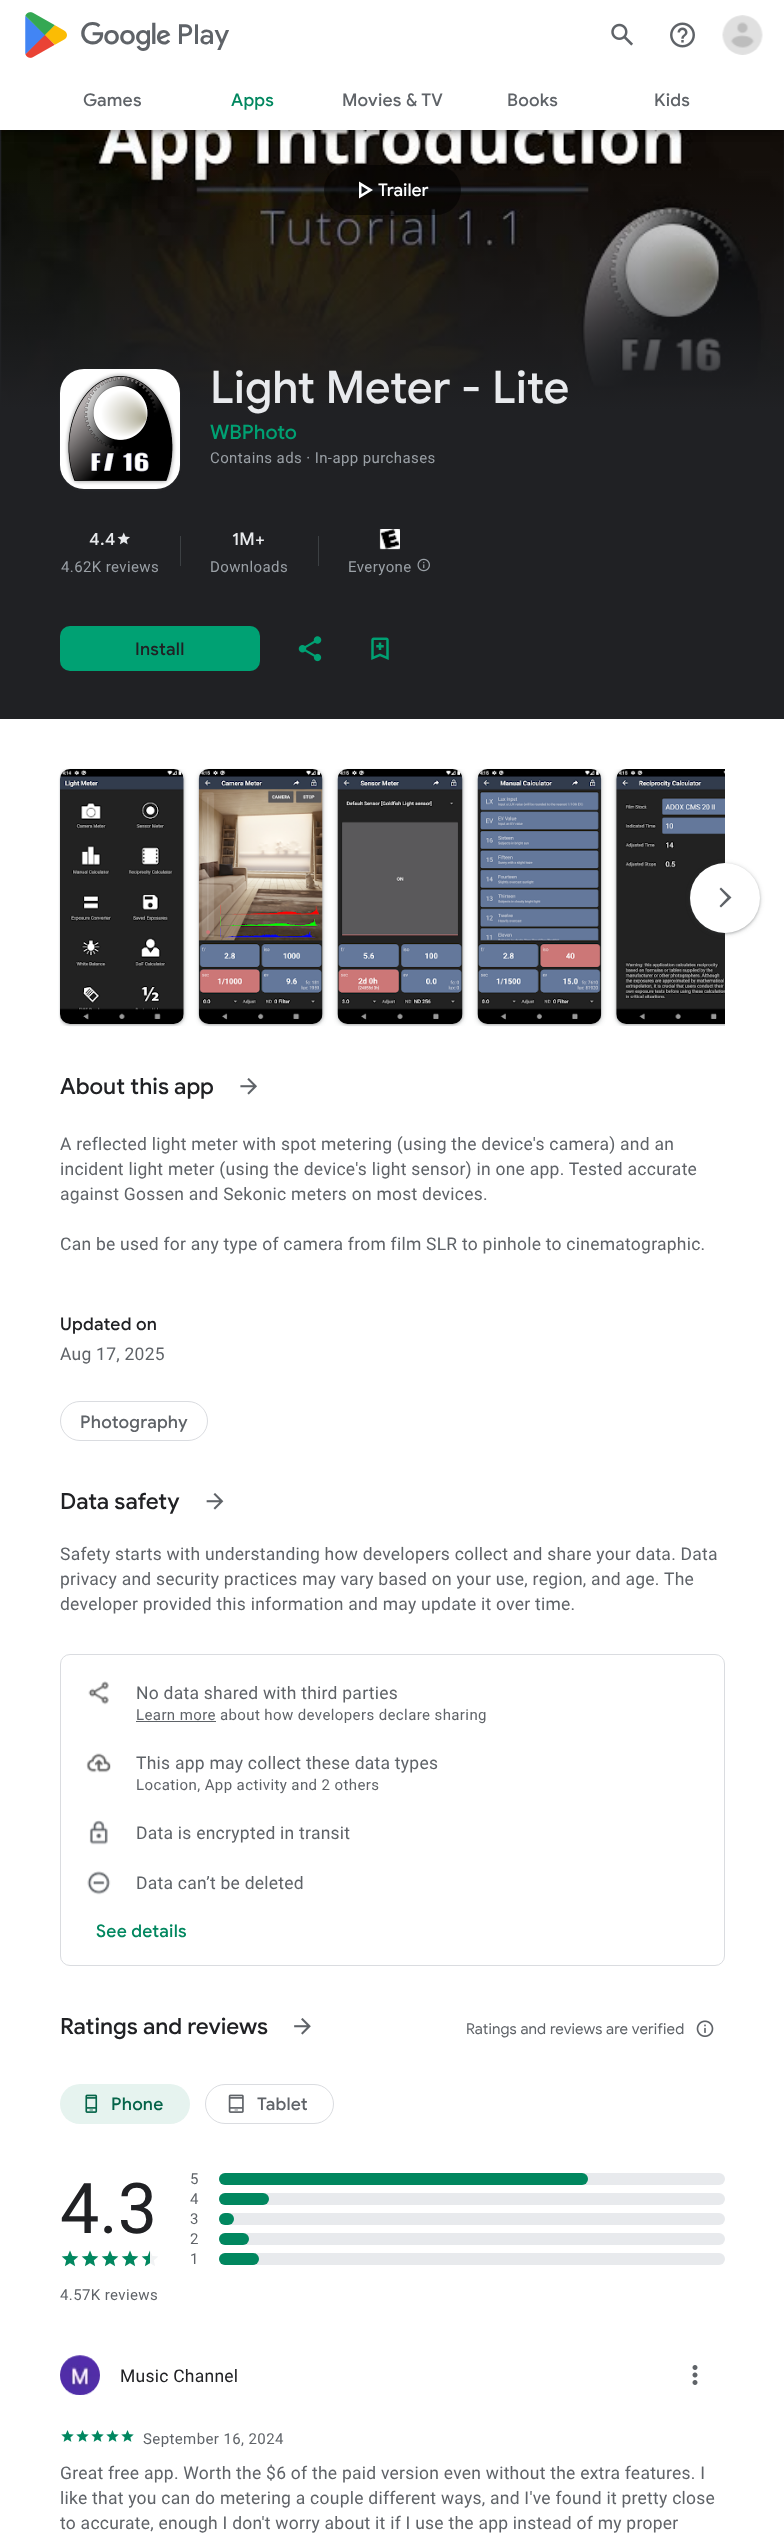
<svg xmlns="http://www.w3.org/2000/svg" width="784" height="2548">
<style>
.a{font:500 27.5px Google Sans;fill:#5f6368}
.b{font:500 17.5px Google Sans;letter-spacing:0.25px;fill:#5f6368}
.c{font:500 17.5px Google Sans;letter-spacing:0.25px;fill:#01875f}
.d{font:500 17.5px Google Sans;fill:#fff}
.e{font:500 45px Google Sans;fill:#e8eaed}
.f{font:500 20px Google Sans;fill:#00a173}
.g{font:15px Roboto;letter-spacing:0.4px;fill:#9aa0a6}
.h{font:500 17.5px Google Sans;letter-spacing:0.25px;fill:#e8eaed}
.i{font:500 17.5px Google Sans;letter-spacing:0.25px;fill:#202124}
.j{font:500 22.5px Google Sans;fill:#202124}
.k{font:17.5px Roboto;letter-spacing:0.25px;fill:#5f6368}
.l{font:15px Roboto;letter-spacing:0.4px;fill:#5f6368}
.m{font:15px Google Sans;letter-spacing:0.15px;fill:#5f6368}
.n{font:500 17.5px Google Sans;letter-spacing:0.25px;fill:#056449}
.o{font:70px Roboto;fill:#202124}
.p{font:17.5px Roboto;letter-spacing:0.25px;fill:#202124}
</style>
<defs>
<linearGradient id="g1" gradientUnits="userSpaceOnUse" x1="393" y1="410" x2="393" y2="-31"><stop offset="0" stop-color="#202124"/><stop offset="0.56" stop-color="#202124" stop-opacity="0"/></linearGradient>
<clipPath id="clip1"><path d="M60 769h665v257H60z"/></clipPath>
<clipPath id="clip2"><path d="M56 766h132v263h-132zm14 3h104c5.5 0 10 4.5 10 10v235c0 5.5-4.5 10-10 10h-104c-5.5 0-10-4.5-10-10v-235c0-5.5 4.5-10 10-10z" clip-rule="evenodd"/></clipPath>
</defs>
<rect width="100%" height="100%" fill="#fff"/>
<path fill="#202124" d="M0 130h784v589H0z"/>
<image href="5.png" x="1" y="130" width="783" height="279"/>
<path fill="#00000033" filter="blur(2.5px)" d="M1 4h783v127H1z"/>
<path fill="#0000001f" filter="blur(6px)" d="M0 1h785v130H0z"/>
<path fill="#00000024" filter="blur(3px)" d="M0 5h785v130H0z"/>
<path fill="#fff" d="M0 0h784v130H0z"/>
<image href="1.png" x="25" y="12" width="42" height="46"/>
<image href="2.png" x="611" y="23" width="22" height="23"/>
<image href="3.png" x="670" y="22" width="25" height="26"/>
<image href="4.png" x="722" y="15" width="41" height="40"/>
<path fill="url(#g1)" d="M1 168h783v241H1z"/>
<rect fill="#0000008a" x="324" y="165" width="137" height="50" rx="25"/>
<path fill="#fff" d="M361.5 186l6.5 4l-6.5 4zm-2.5-4.5v17l14-8.5z"/>
<rect fill="#3c40434d" filter="blur(1px)" x="60" y="370" width="120" height="120" rx="24"/>
<image href="6.png" x="60" y="369" width="120" height="120"/>
<image href="7.png" x="117" y="532" width="13" height="13"/>
<path fill="#3c4043" d="M180 536h1v30H180z"/>
<path fill="#3c4043" d="M318 536h1v30H318z"/>
<image href="8.png" x="379" y="529" width="21" height="21"/>
<image href="9.png" x="417" y="558" width="13" height="14"/>
<rect fill="#00a173" x="60" y="626" width="200" height="45" rx="10"/>
<image href="10.png" x="298" y="636" width="24" height="26"/>
<image href="11.png" x="371" y="637" width="18" height="23"/>
<g clip-path="url(#clip1)">
<rect fill="#3c404326" filter="blur(2px)" x="59" y="769" width="126" height="257" rx="11"/>
</g>
<g clip-path="url(#clip2)">
<rect fill="#3c40434d" filter="blur(1px)" x="60" y="770" width="124" height="255" rx="10"/>
</g>
<image href="12.png" x="60" y="769" width="124" height="255"/>
<g clip-path="url(#clip1)">
<rect fill="#3c404326" filter="blur(2px)" x="198" y="769" width="126" height="257" rx="11"/>
</g>
<rect fill="#3c40434d" filter="blur(1px)" x="199" y="770" width="124" height="255" rx="10"/>
<image href="13.png" x="198" y="769" width="125" height="255"/>
<g clip-path="url(#clip1)">
<rect fill="#3c404326" filter="blur(2px)" x="336" y="769" width="128" height="257" rx="11"/>
</g>
<rect fill="#3c40434d" filter="blur(1px)" x="338" y="770" width="125" height="255" rx="10"/>
<image href="14.png" x="337" y="769" width="126" height="255"/>
<g clip-path="url(#clip1)">
<rect fill="#3c404326" filter="blur(2px)" x="476" y="769" width="127" height="257" rx="11"/>
</g>
<rect fill="#3c40434d" filter="blur(1px)" x="478" y="770" width="123" height="255" rx="10"/>
<image href="15.png" x="477" y="769" width="125" height="255"/>
<g clip-path="url(#clip1)">
<rect fill="#3c404326" filter="blur(2px)" x="615" y="769" width="126" height="257" rx="11"/>
<rect fill="#3c40434d" filter="blur(1px)" x="616" y="770" width="124" height="255" rx="10"/>
</g>
<image href="16.png" x="616" y="769" width="109" height="255"/>
<rect fill="#3c404326" filter="blur(2px)" x="689" y="863" width="72" height="72" rx="36"/>
<rect fill="#3c40434d" filter="blur(1px)" x="690" y="864" width="70" height="70" rx="35"/>
<circle fill="#fff" cx="725" cy="898" r="35"/>
<path fill="#5f6368" d="M719.5 906l1.5 1.5l10.5-10l-10.5-10l-1.5 1.5l8 8.5z"/>
<image href="17.png" x="240" y="1078" width="17" height="17"/>
<rect fill="none" stroke="#dadce0" x="60.5" y="1401.5" width="147" height="39" rx="19.5"/>
<image href="18.png" x="206" y="1493" width="18" height="17"/>
<rect fill="none" stroke="#dadce0" x="60.5" y="1654.5" width="664" height="311" rx="9.5"/>
<image href="19.png" x="88" y="1681" width="21" height="24"/>
<path fill="#5f6368" d="M136 1721h80v1H136z"/>
<image href="20.png" x="86" y="1753" width="25" height="20"/>
<image href="21.png" x="89" y="1820" width="19" height="25"/>
<image href="22.png" x="87" y="1871" width="24" height="24"/>
<image href="23.png" x="294" y="2018" width="17" height="17"/>
<image href="24.png" x="696" y="2020" width="18" height="17"/>
<rect fill="#e6f3ef" x="60" y="2084" width="130" height="40" rx="20"/>
<image href="25.png" x="85" y="2094" width="13" height="19"/>
<rect fill="none" stroke="#dadce0" x="205.5" y="2084.5" width="128" height="39" rx="19.5"/>
<image href="26.png" x="228" y="2094" width="16" height="19"/>
<image href="27.png" x="61" y="2250" width="18" height="17"/>
<image href="27.png" x="81" y="2250" width="18" height="17"/>
<image href="27.png" x="101" y="2250" width="18" height="17"/>
<image href="27.png" x="121" y="2250" width="18" height="17"/>
<image href="28.png" x="141" y="2250" width="17" height="17"/>
<rect fill="#e8eaed" x="219" y="2173" width="506" height="12" rx="6"/>
<rect fill="#01875f" x="219" y="2173" width="369" height="12" rx="6"/>
<rect fill="#e8eaed" x="219" y="2193" width="506" height="12" rx="6"/>
<rect fill="#01875f" x="219" y="2193" width="50" height="12" rx="6"/>
<rect fill="#e8eaed" x="219" y="2213" width="506" height="12" rx="6"/>
<rect fill="#01875f" x="219" y="2213" width="15" height="12" rx="6"/>
<rect fill="#e8eaed" x="219" y="2233" width="506" height="12" rx="6"/>
<rect fill="#01875f" x="219" y="2233" width="30" height="12" rx="6"/>
<rect fill="#e8eaed" x="219" y="2253" width="506" height="12" rx="6"/>
<rect fill="#01875f" x="219" y="2253" width="40" height="12" rx="6"/>
<image href="29.png" x="60" y="2355" width="40" height="40"/>
<image href="30.png" x="692" y="2365" width="6" height="20"/>
<image href="31.png" x="61" y="2430" width="13" height="12"/>
<image href="31.png" x="76" y="2430" width="13" height="12"/>
<image href="31.png" x="91" y="2430" width="13" height="12"/>
<image href="31.png" x="106" y="2430" width="13" height="12"/>
<image href="31.png" x="121" y="2430" width="13" height="12"/>
<text class="a" x="80" y="44">google_logo Play</text>
<text class="b" x="83" y="106">Games</text>
<text class="c" x="231" y="106">Apps</text>
<text class="b" x="342" y="106">Movies &amp; TV</text>
<text class="b" x="507" y="106">Books</text>
<text class="b" x="654" y="106">Kids</text>
<text class="d" x="378" y="196">Trailer</text>
<text class="e" x="210" y="403">Light Meter - Lite</text>
<text class="f" x="210" y="439">WBPhoto</text>
<text class="g" x="210" y="463">Contains ads · In-app purchases</text>
<text class="h" x="89" y="545">4.4</text>
<text class="g" x="61" y="572">4.62K reviews</text>
<text class="h" x="232" y="545">1M+</text>
<text class="g" x="210" y="572">Downloads</text>
<text class="g" x="348" y="572">Everyone</text>
<text class="i" x="135" y="655">Install</text>
<text class="j" x="60" y="1094">About this app</text>
<text class="k" x="60" y="1150">A reflected light meter with spot metering (using the device's camera) and an</text>
<text class="k" x="60" y="1175">incident light meter (using the device's light sensor) in one app. Tested accurate</text>
<text class="k" x="60" y="1200">against Gossen and Sekonic meters on most devices.</text>
<text class="k" x="60" y="1250">Can be used for any type of camera from film SLR to pinhole to cinematographic.</text>
<text class="i" x="60" y="1330">Updated on</text>
<text class="k" x="60" y="1360">Aug 17, 2025</text>
<text class="b" x="80" y="1428">Photography</text>
<text class="j" x="60" y="1509">Data safety</text>
<text class="k" x="60" y="1560">Safety starts with understanding how developers collect and share your data. Data</text>
<text class="k" x="60" y="1585">privacy and security practices may vary based on your use, region, and age. The</text>
<text class="k" x="60" y="1610">developer provided this information and may update it over time.</text>
<text class="k" x="136" y="1699">No data shared with third parties</text>
<text class="l" x="136" y="1720">Learn more about how developers declare sharing</text>
<text class="k" x="136" y="1769">This app may collect these data types</text>
<text class="l" x="136" y="1790">Location, App activity and 2 others</text>
<text class="k" x="136" y="1839">Data is encrypted in transit</text>
<text class="k" x="136" y="1889">Data can’t be deleted</text>
<text class="c" x="96" y="1937">See details</text>
<text class="j" x="60" y="2034">Ratings and reviews</text>
<text class="m" x="466" y="2034">Ratings and reviews are verified</text>
<text class="n" x="111" y="2110">Phone</text>
<text class="b" x="257" y="2110">Tablet</text>
<text class="o" x="60" y="2233">4.3</text>
<text class="l" x="60" y="2300">4.57K reviews</text>
<text class="l" x="190" y="2184">5</text>
<text class="l" x="190" y="2204">4</text>
<text class="l" x="190" y="2224">3</text>
<text class="l" x="190" y="2244">2</text>
<text class="l" x="190" y="2264">1</text>
<text class="p" x="120" y="2382">Music Channel</text>
<text class="l" x="143" y="2444">September 16, 2024</text>
<text class="k" x="60" y="2479">Great free app. Worth the $6 of the paid version even without the extra features. I</text>
<text class="k" x="60" y="2504">like that you can do metering a couple different ways, and I've found it pretty close</text>
<text class="k" x="60" y="2529">to accurate, enough I don't worry about it if I use the app instead of my proper</text>
</svg>
